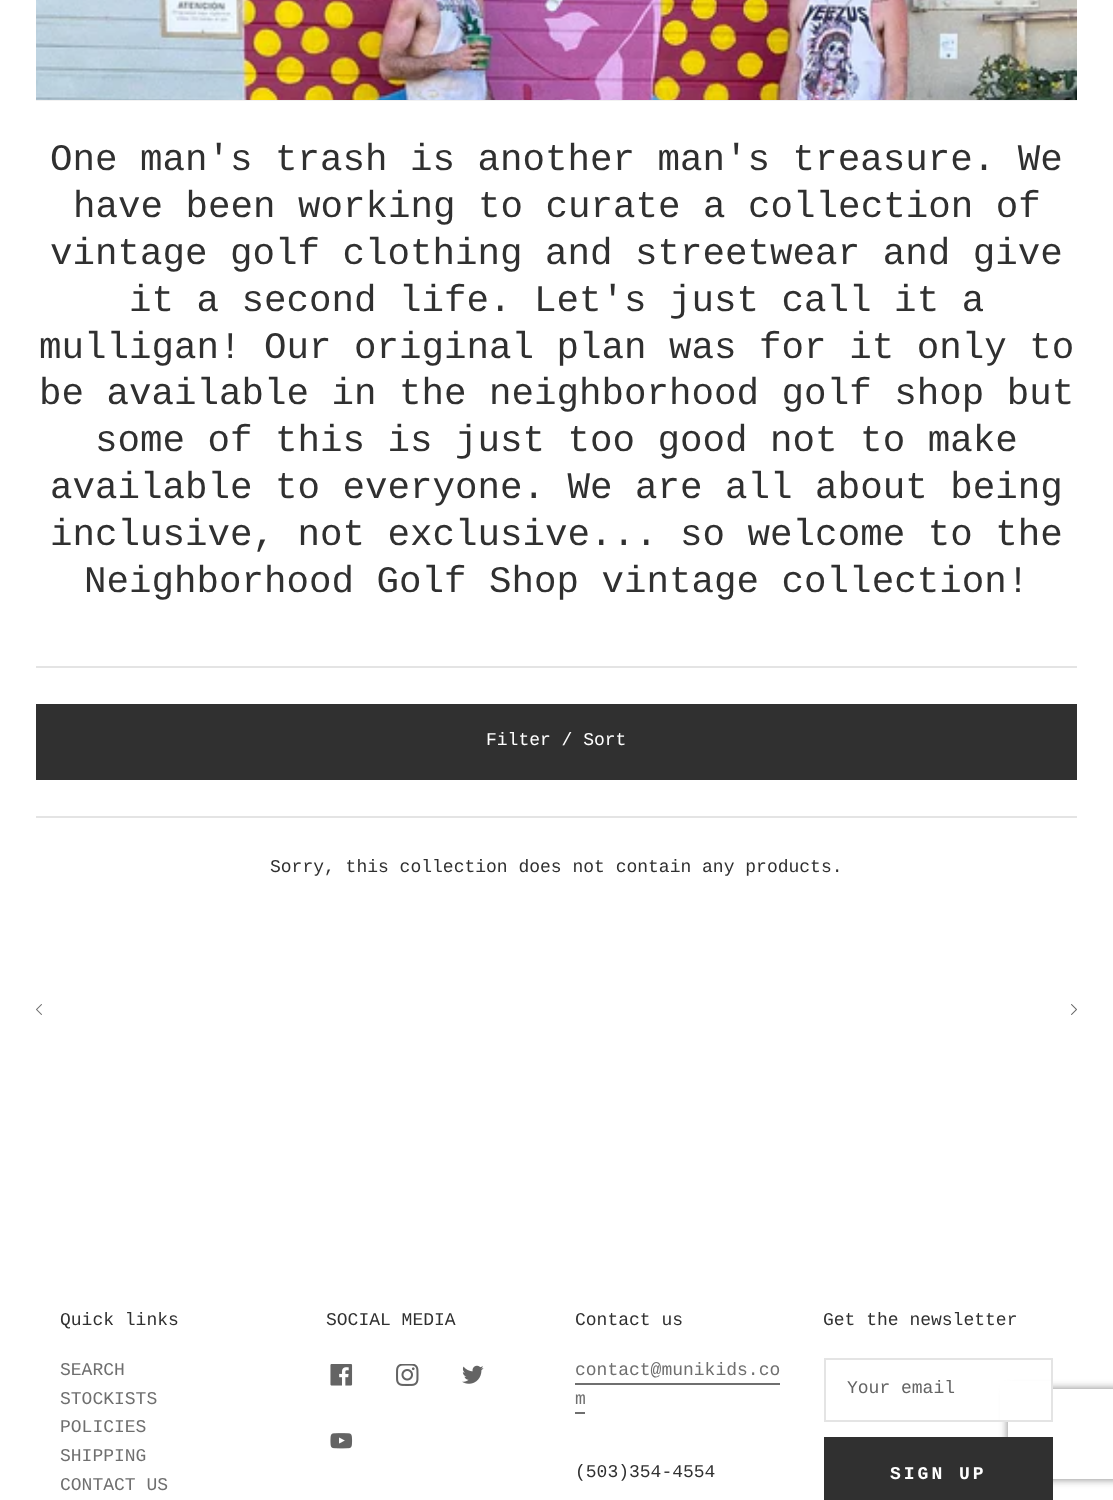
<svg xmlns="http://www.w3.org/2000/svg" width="1113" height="1500">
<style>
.a{font:37.5px Liberation Mono;fill:#303030}
.b{font:18px Liberation Mono;fill:#fff}
.c{font:18px Liberation Mono;fill:#303030}
.d{font:18px Liberation Mono;fill:#6f6f6f}
.e{font:18px Liberation Mono;fill:#646464}
.f{font:bold 18px Liberation Mono;letter-spacing:3px;fill:#fff}
</style>
<defs>
<clipPath id="clip1"><path d="M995 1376h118v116h-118zm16 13h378c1.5 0 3 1.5 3 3v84c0 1.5-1.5 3-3 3h-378c-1.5 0-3-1.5-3-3v-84c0-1.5 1.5-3 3-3z" clip-rule="evenodd"/></clipPath>
</defs>
<rect width="100%" height="100%" fill="#fff"/>
<path fill="#f2f2f2" d="M36 100h1041v1H36z"/>
<image href="1.png" x="36" y="0" width="1041" height="100"/>
<path fill="#e4e4e4" d="M36 666h1041v2H36z"/>
<path fill="#e4e4e4" d="M36 816h1041v2H36z"/>
<path fill="#303030" d="M36 704h1041v76H36z"/>
<image href="2.png" x="36" y="1004" width="6" height="11"/>
<image href="3.png" x="1071" y="1004" width="6" height="11"/>
<image href="4.png" x="330" y="1364" width="23" height="22"/>
<image href="5.png" x="396" y="1364" width="23" height="22"/>
<image href="6.png" x="462" y="1365" width="22" height="19"/>
<image href="7.png" x="330" y="1433" width="23" height="16"/>
<path fill="#6f6f6f" d="M575 1383h205v2H575z"/>
<path fill="#6f6f6f" d="M575 1412h10v2H575z"/>
<g clip-path="url(#clip1)">
<rect fill="#808080" filter="blur(4px)" x="1008" y="1389" width="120" height="90" rx="3"/>
</g>
<path fill="#fff" d="M1000 1381h51v39H1000z"/>
<path fill="none" stroke="#e4e4e4" stroke-width="2" d="M825 1359h227v62H825z"/>
<path fill="#303030" d="M824 1437h229v63H824z"/>
<text class="a" x="50" y="170">One man's trash is another man's treasure. We</text>
<text class="a" x="73" y="217">have been working to curate a collection of</text>
<text class="a" x="50" y="264">vintage golf clothing and streetwear and give</text>
<text class="a" x="129" y="311">it a second life. Let's just call it a</text>
<text class="a" x="39" y="358">mulligan! Our original plan was for it only to</text>
<text class="a" x="39" y="404">be available in the neighborhood golf shop but</text>
<text class="a" x="95" y="451">some of this is just too good not to make</text>
<text class="a" x="50" y="498">available to everyone. We are all about being</text>
<text class="a" x="50" y="545">inclusive, not exclusive... so welcome to the</text>
<text class="a" x="84" y="592">Neighborhood Golf Shop vintage collection!</text>
<text class="b" x="486" y="745">Filter / Sort</text>
<text class="c" x="270" y="872">Sorry, this collection does not contain any products.</text>
<text class="c" x="60" y="1325">Quick links</text>
<text class="d" x="60" y="1375">SEARCH</text>
<text class="d" x="60" y="1404">STOCKISTS</text>
<text class="d" x="60" y="1432">POLICIES</text>
<text class="d" x="60" y="1461">SHIPPING</text>
<text class="d" x="60" y="1490">CONTACT US</text>
<text class="c" x="326" y="1325">SOCIAL MEDIA</text>
<text class="c" x="575" y="1325">Contact us</text>
<text class="d" x="575" y="1375">contact@munikids.co</text>
<text class="d" x="575" y="1404">m</text>
<text class="c" x="575" y="1477">(503)354-4554</text>
<text class="c" x="823" y="1325">Get the newsletter</text>
<text class="e" x="847" y="1393">Your email</text>
<text class="f" x="890" y="1479">SIGN UP</text>
</svg>
